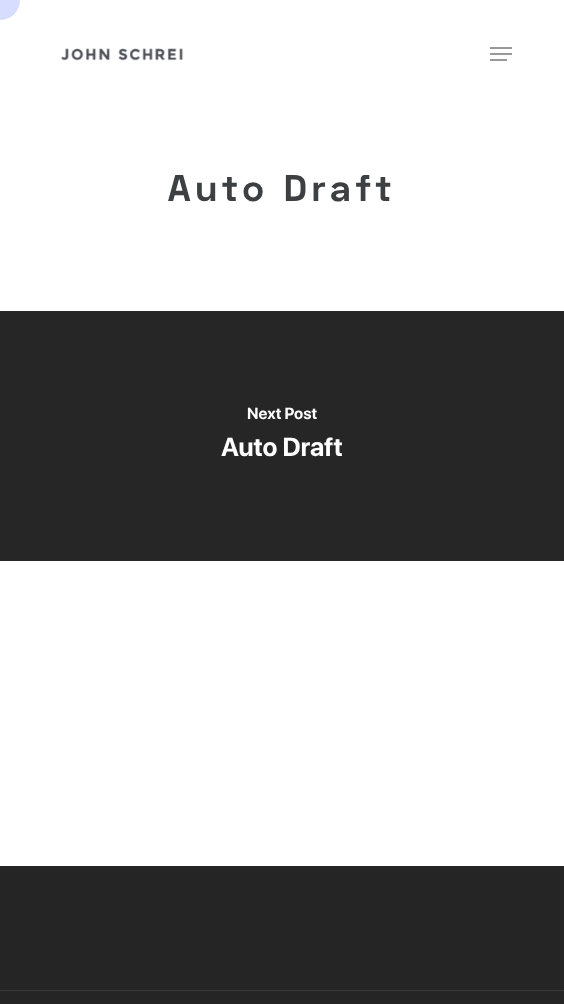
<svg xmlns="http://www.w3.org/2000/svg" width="564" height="1004">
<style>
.a{font:bold 37px Space Grotesk;letter-spacing:5px;fill:#3c4043}
.b{font:bold 16px SF Pro Display;fill:#fff}
.c{font:bold 26px SF Pro Display;fill:#fff}
</style>
<rect width="100%" height="100%" fill="#fff"/>
<circle fill="#d7ddff" cx="0" cy="0" r="20"/>
<image href="1.png" x="61" y="48" width="123" height="13"/>
<path fill="#999" d="M490 47h22v2H490z"/>
<path fill="#999" d="M490 59h17v2H490z"/>
<path fill="#999" d="M490 53h22v2H490z"/>
<path fill="#262626" d="M0 311h564v250H0z"/>
<path fill="#252525" d="M0 866h564v138H0z"/>
<path fill="#3b3b3b" d="M0 990h564v1H0z"/>
<text class="a" x="168" y="201">Auto Draft</text>
<text class="b" x="247" y="419">Next Post</text>
<text class="c" x="221" y="456">Auto Draft</text>
</svg>
